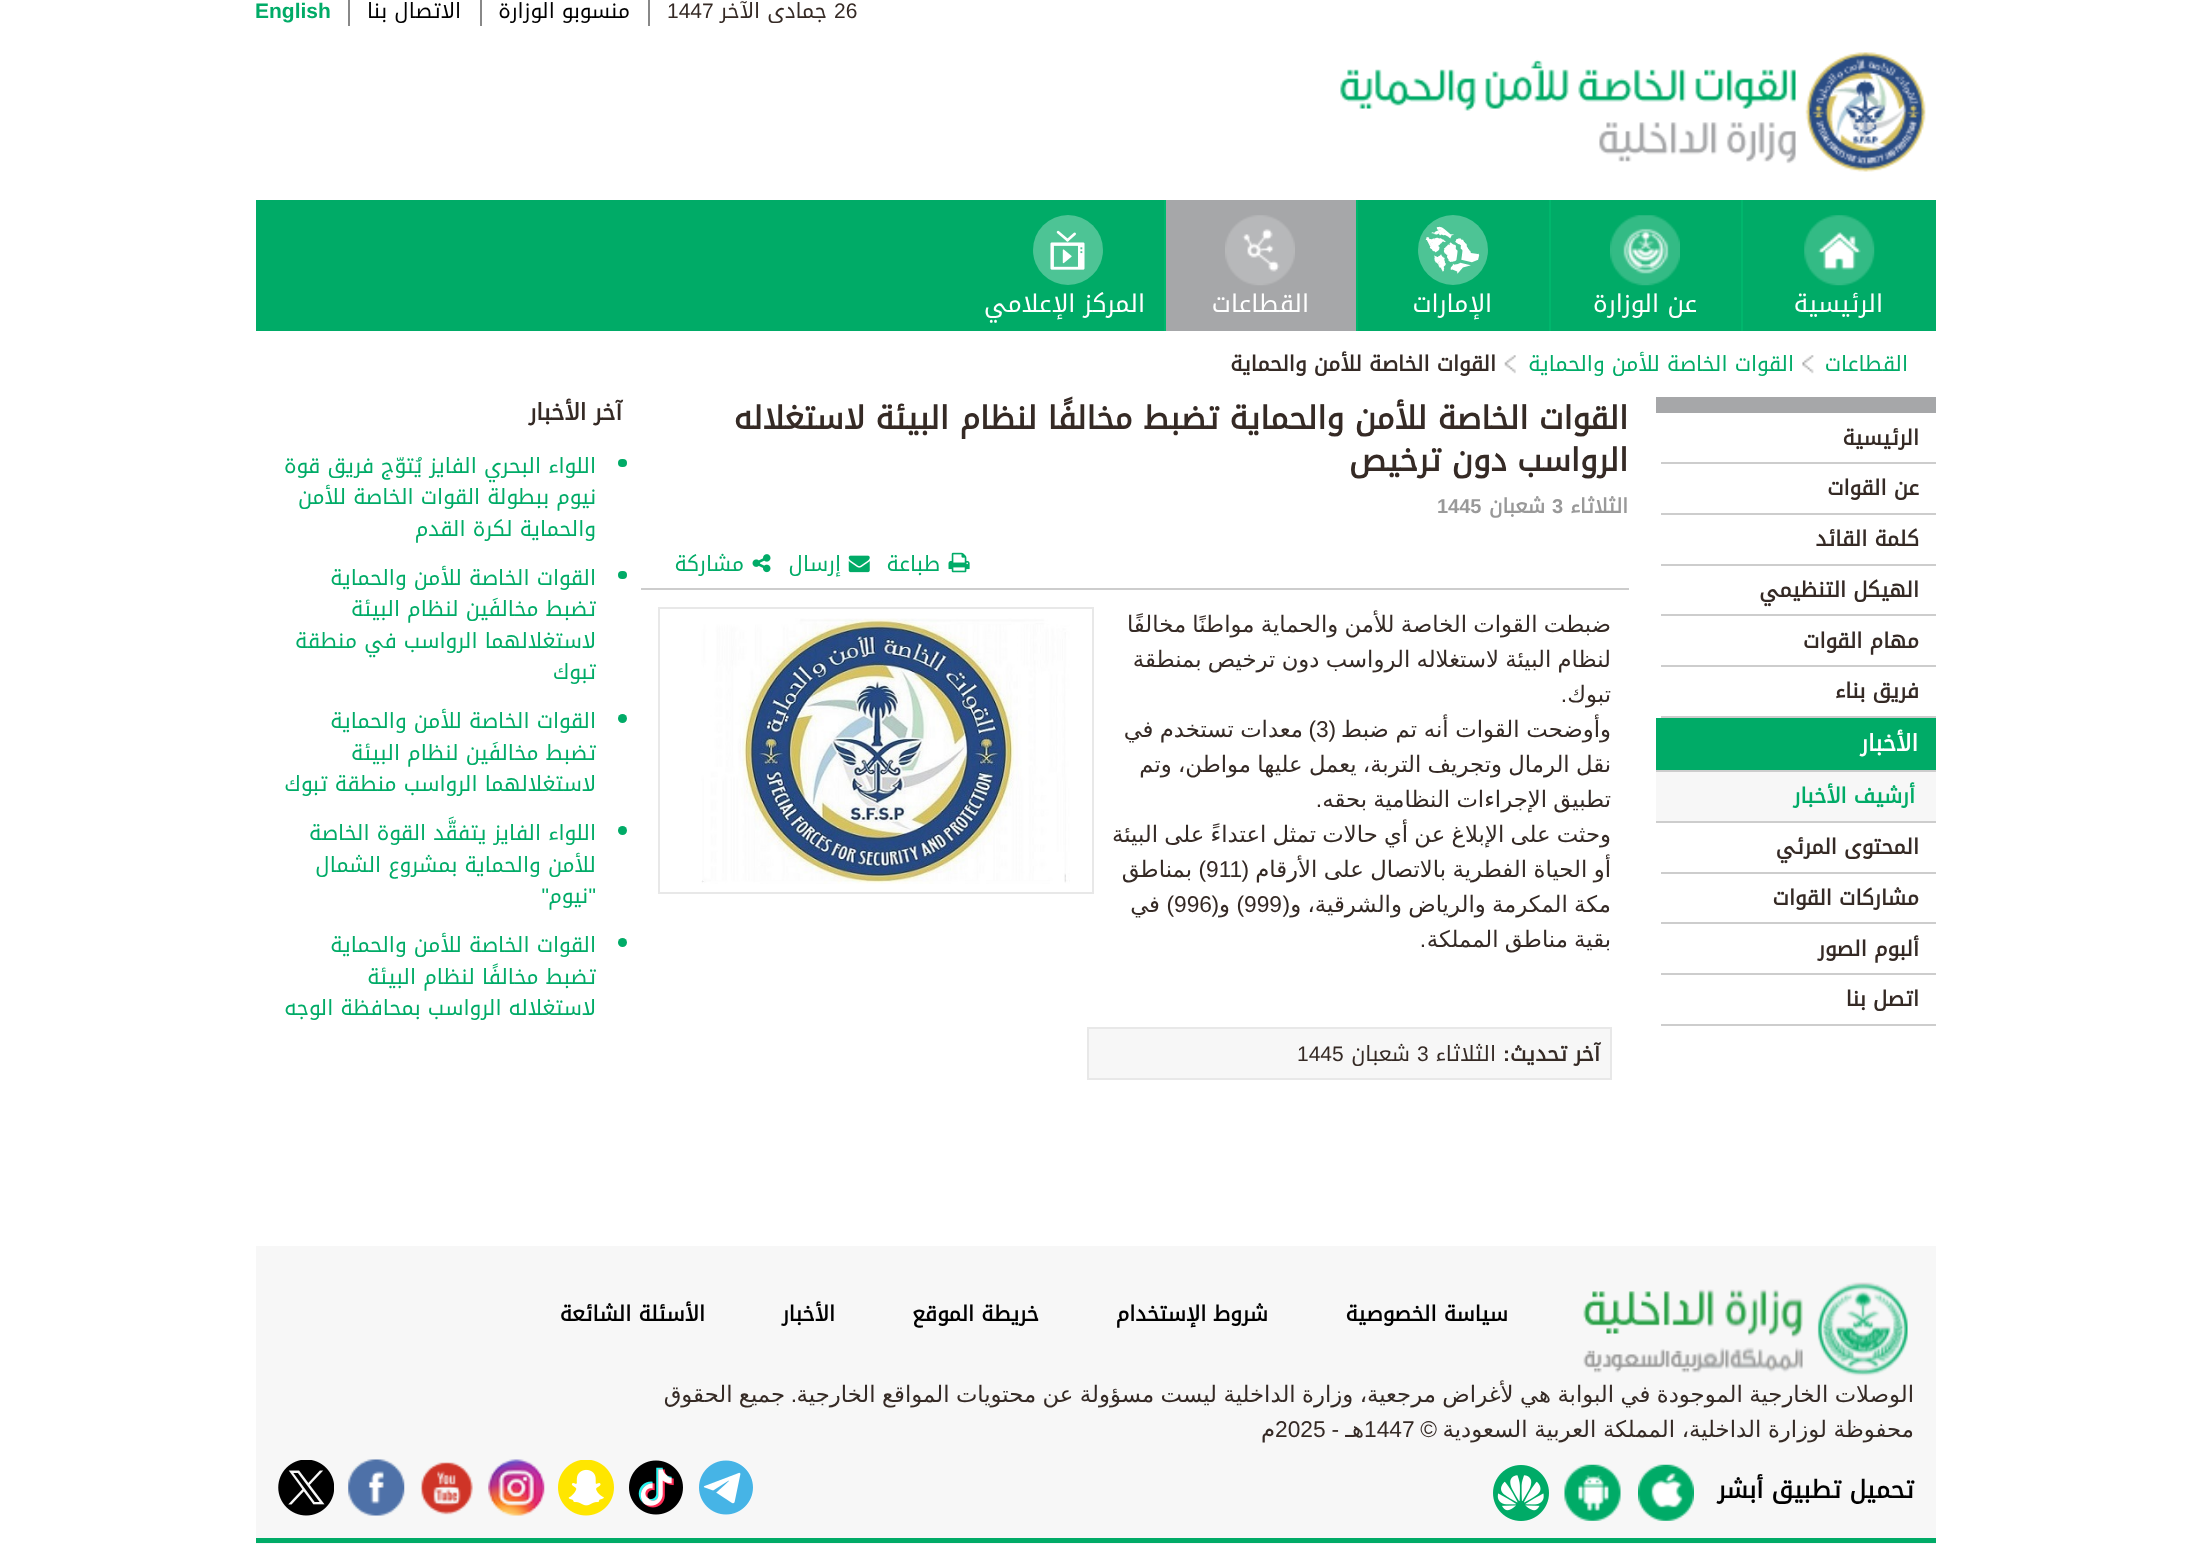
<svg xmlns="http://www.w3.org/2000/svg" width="2189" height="1549">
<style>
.a{font:21px Liberation Sans;fill:#352a25}
.b{font:21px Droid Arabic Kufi;direction:rtl;fill:#352a25}
.c{font:21px Droid Arabic Kufi;direction:rtl;fill:#000}
.d{font:bold 21px Liberation Sans;fill:#00ab67}
.e{font:24.5px Droid Arabic Kufi;direction:rtl;fill:#fff}
.f{font:21px Droid Arabic Kufi;direction:rtl;fill:#00ab67}
.g{font:bold 21px Droid Arabic Kufi;direction:rtl;fill:#352a25}
.h{font:bold 22.75px Droid Arabic Kufi;direction:rtl;fill:#fff}
.i{font:bold 21px Droid Arabic Kufi;direction:rtl;fill:#00ab67}
.j{font:bold 31.5px Droid Arabic Kufi;direction:rtl;fill:#352a25}
.k{font:bold 20px Droid Arabic Kufi;direction:rtl;fill:#999}
.l{font:bold 20px Liberation Sans;fill:#999}
.m{font:22.75px DejaVu Sans;direction:rtl;fill:#352a25}
.n{font:22.75px Liberation Sans;direction:rtl;fill:#352a25}
.o{font:22.75px Liberation Sans;fill:#352a25}
.p{font:bold 21px Liberation Sans;direction:rtl;fill:#352a25}
.q{font:bold 22.75px Droid Arabic Kufi;direction:rtl;fill:#352a25}
.r{font:21px Liberation Sans;direction:rtl;fill:#00ab67}
.s{font:bold 21px Droid Arabic Kufi;direction:rtl;fill:#000}
.t{font:bold 24.5px Droid Arabic Kufi;direction:rtl;fill:#000}
</style>
<rect width="100%" height="100%" fill="#fff"/>
<path fill="#888" d="M648 0h2v26H648z"/>
<path fill="#888" d="M480 0h2v26H480z"/>
<path fill="#888" d="M348 0h2v26H348z"/>
<image href="1.png" x="1340" y="52" width="586" height="120"/>
<path fill="#00ab67" d="M256 200h1680v131H256z"/>
<image href="2.png" x="1804" y="215" width="71" height="71"/>
<path fill="#00b76d" d="M1741 200h2v131H1741z"/>
<image href="3.png" x="1610" y="215" width="70" height="71"/>
<path fill="#00b76d" d="M1549 200h2v131H1549z"/>
<circle fill="#4dc495" cx="1453" cy="250" r="35"/>
<image href="4.png" x="1425" y="226" width="55" height="48"/>
<path fill="#a6a7a9" d="M1166 200h190v131H1166z"/>
<path fill="#00b76d" d="M1356 200h2v131H1356z"/>
<image href="5.png" x="1225" y="215" width="70" height="71"/>
<path fill="#00b76d" d="M1164 200h2v131H1164z"/>
<circle fill="#4dc495" cx="1068" cy="250" r="35"/>
<image href="6.png" x="1050" y="230" width="35" height="40"/>
<image href="7.png" x="1802" y="355" width="12" height="19"/>
<image href="8.png" x="1504" y="355" width="12" height="19"/>
<path fill="#a6a7a9" d="M1656 397h280v16H1656z"/>
<path fill="#cdcdcd" d="M1661 462h275v2H1661z"/>
<path fill="#cdcdcd" d="M1661 513h275v2H1661z"/>
<path fill="#cdcdcd" d="M1661 564h275v2H1661z"/>
<path fill="#cdcdcd" d="M1661 614h275v2H1661z"/>
<path fill="#cdcdcd" d="M1661 665h275v2H1661z"/>
<path fill="#cdcdcd" d="M1661 716h275v2H1661z"/>
<path fill="#00ab67" d="M1656 718h280v52H1656z"/>
<path fill="#cdcdcd" d="M1656 770h280v2H1656z"/>
<path fill="#f7f7f7" d="M1656 772h280v49H1656z"/>
<path fill="#cdcdcd" d="M1656 821h280v2H1656z"/>
<path fill="#cdcdcd" d="M1661 872h275v2H1661z"/>
<path fill="#cdcdcd" d="M1661 922h275v2H1661z"/>
<path fill="#cdcdcd" d="M1661 973h275v2H1661z"/>
<path fill="#cdcdcd" d="M1661 1024h275v2H1661z"/>
<path fill="#cdcdcd" d="M641 588h988v2H641z"/>
<image href="9.png" x="948" y="552" width="22" height="21"/>
<image href="10.png" x="848" y="555" width="22" height="18"/>
<image href="11.png" x="752" y="554" width="19" height="19"/>
<path fill="none" stroke="#e8e8e8" stroke-width="2" d="M659 608h434v285H659z"/>
<image href="12.png" x="701" y="618" width="369" height="266"/>
<path fill="#f7f7f7" stroke="#e8e8e8" stroke-width="2" d="M1088 1028h523v51H1088z"/>
<rect fill="#00ab67" x="618" y="459" width="9" height="8" rx="4"/>
<rect fill="#00ab67" x="618" y="571" width="9" height="8" rx="4"/>
<circle fill="#00ab67" cx="622.5" cy="718.5" r="4.5"/>
<circle fill="#00ab67" cx="622.5" cy="830.5" r="4.5"/>
<circle fill="#00ab67" cx="622.5" cy="942.5" r="4.5"/>
<path fill="#f7f7f7" d="M256 1246h1680v298H256z"/>
<path fill="#00ab67" d="M256 1538h1680v5H256z"/>
<image href="13.png" x="1583" y="1282" width="325" height="94"/>
<image href="14.png" x="1638" y="1464" width="56" height="57"/>
<image href="15.png" x="1564" y="1464" width="57" height="57"/>
<image href="16.png" x="1493" y="1465" width="56" height="56"/>
<image href="17.png" x="699" y="1460" width="54" height="55"/>
<image href="18.png" x="629" y="1460" width="54" height="55"/>
<image href="19.png" x="558" y="1460" width="56" height="56"/>
<image href="20.png" x="488" y="1459" width="57" height="57"/>
<image href="21.png" x="420" y="1462" width="53" height="53"/>
<image href="22.png" x="348" y="1459" width="57" height="57"/>
<image href="23.png" x="278" y="1460" width="56" height="56"/>
<text class="a" x="834" y="18">26</text>
<text class="b" x="827" y="18">جمادى الآخر</text>
<text class="a" x="667" y="18">1447</text>
<text class="c" x="630" y="18">منسوبو الوزارة</text>
<text class="c" x="461" y="18">الاتصال</text>
<text class="c" x="387" y="18">بنا</text>
<text class="d" x="255" y="18">English</text>
<text class="e" x="1883" y="312">الرئيسية</text>
<text class="e" x="1697" y="312">عن الوزارة</text>
<text class="e" x="1492" y="312">الإمارات</text>
<text class="e" x="1309" y="312">القطاعات</text>
<text class="e" x="1145" y="312">المركز الإعلامي</text>
<text class="f" x="1908" y="371">القطاعات</text>
<text class="f" x="1794" y="371">القوات الخاصة للأمن والحماية</text>
<text class="g" x="1496" y="371">القوات الخاصة للأمن والحماية</text>
<text class="g" x="1919" y="445">الرئيسية</text>
<text class="g" x="1919" y="495">عن القوات</text>
<text class="g" x="1919" y="546">كلمة القائد</text>
<text class="g" x="1919" y="597">الهيكل التنظيمي</text>
<text class="g" x="1919" y="648">مهام القوات</text>
<text class="g" x="1919" y="698">فريق بناء</text>
<text class="h" x="1918" y="751">الأخبار</text>
<text class="i" x="1915" y="803">أرشيف الأخبار</text>
<text class="g" x="1919" y="854">المحتوى المرئي</text>
<text class="g" x="1919" y="905">مشاركات القوات</text>
<text class="g" x="1919" y="956">ألبوم الصور</text>
<text class="g" x="1919" y="1006">اتصل بنا</text>
<text class="j" x="1628" y="429">القوات الخاصة للأمن والحماية تضبط مخالفًا لنظام البيئة لاستغلاله</text>
<text class="j" x="1628" y="471">الرواسب دون ترخيص</text>
<text class="k" x="1628" y="513">الثلاثاء</text>
<text class="l" x="1552" y="513">3</text>
<text class="k" x="1545" y="513">شعبان</text>
<text class="l" x="1437" y="513">1445</text>
<text class="f" x="940" y="571">طباعة</text>
<text class="f" x="841" y="571">إرسال</text>
<text class="f" x="744" y="571">مشاركة</text>
<text class="m" x="1611" y="632" word-spacing="-1">ضبطت القوات الخاصة للأمن والحماية مواطنًا مخالفًا</text>
<text class="m" x="1611" y="667" word-spacing="-1">لنظام البيئة لاستغلاله الرواسب دون ترخيص بمنطقة</text>
<text class="m" x="1611" y="702">تبوك</text>
<text class="n" x="1567" y="702">.</text>
<text class="m" x="1611" y="737" word-spacing="-0.5">وأوضحت القوات أنه تم ضبط</text>
<text class="n" x="1336" y="737">(</text>
<text class="o" x="1316" y="737">3</text>
<text class="n" x="1316" y="737">)</text>
<text class="m" x="1303" y="737" word-spacing="-1">معدات تستخدم في</text>
<text class="m" x="1611" y="772" word-spacing="-1">نقل الرمال وتجريف التربة، يعمل عليها مواطن، وتم</text>
<text class="m" x="1611" y="807" word-spacing="-1">تطبيق الإجراءات النظامية بحقه</text>
<text class="n" x="1322" y="807">.</text>
<text class="m" x="1611" y="842" word-spacing="-1">وحثت على الإبلاغ عن أي حالات تمثل اعتداءً على البيئة</text>
<text class="m" x="1611" y="877" word-spacing="-0.75">أو الحياة الفطرية بالاتصال على الأرقام</text>
<text class="n" x="1249" y="877">(</text>
<text class="o" x="1206" y="877">911</text>
<text class="n" x="1206" y="877">)</text>
<text class="m" x="1192" y="877">بمناطق</text>
<text class="n" x="1290" y="912">(</text>
<text class="m" x="1611" y="912" word-spacing="-1">مكة المكرمة والرياض والشرقية، و</text>
<text class="o" x="1244" y="912">999</text>
<text class="n" x="1244" y="912">)</text>
<text class="n" x="1219" y="912">(</text>
<text class="m" x="1230" y="912">و</text>
<text class="o" x="1174" y="912">996</text>
<text class="n" x="1174" y="912">)</text>
<text class="m" x="1160" y="912">في</text>
<text class="m" x="1611" y="947" word-spacing="-1">بقية مناطق المملكة</text>
<text class="n" x="1426" y="947">.</text>
<text class="g" x="1600" y="1061">آخر تحديث</text>
<text class="p" x="1510" y="1061">:</text>
<text class="b" x="1496" y="1061">الثلاثاء</text>
<text class="a" x="1417" y="1061">3</text>
<text class="b" x="1410" y="1061">شعبان</text>
<text class="a" x="1297" y="1061">1445</text>
<text class="q" x="622" y="420">آخر الأخبار</text>
<text class="f" x="596" y="473">اللواء البحري الفايز يُتوّج فريق قوة</text>
<text class="f" x="596" y="504">نيوم ببطولة القوات الخاصة للأمن</text>
<text class="f" x="596" y="536">والحماية لكرة القدم</text>
<text class="f" x="596" y="585">القوات الخاصة للأمن والحماية</text>
<text class="f" x="596" y="616">تضبط مخالفَين لنظام البيئة</text>
<text class="f" x="596" y="648">لاستغلالهما الرواسب في منطقة</text>
<text class="f" x="596" y="679">تبوك</text>
<text class="f" x="596" y="728">القوات الخاصة للأمن والحماية</text>
<text class="f" x="596" y="760">تضبط مخالفَين لنظام البيئة</text>
<text class="f" x="596" y="791">لاستغلالهما الرواسب منطقة تبوك</text>
<text class="f" x="596" y="840">اللواء الفايز يتفقَّد القوة الخاصة</text>
<text class="f" x="596" y="872">للأمن والحماية بمشروع الشمال</text>
<text class="r" x="596" y="903">"</text>
<text class="f" x="588" y="903">نيوم</text>
<text class="r" x="549" y="903">"</text>
<text class="f" x="596" y="952">القوات الخاصة للأمن والحماية</text>
<text class="f" x="596" y="984">تضبط مخالفًا لنظام البيئة</text>
<text class="f" x="596" y="1015">لاستغلاله الرواسب بمحافظة الوجه</text>
<text class="s" x="1508" y="1321">سياسة الخصوصية</text>
<text class="s" x="1268" y="1321">شروط الإستخدام</text>
<text class="s" x="1039" y="1321">خريطة الموقع</text>
<text class="s" x="835" y="1321">الأخبار</text>
<text class="s" x="705" y="1321">الأسئلة الشائعة</text>
<text class="m" x="1914" y="1402" word-spacing="-0.8">الوصلات الخارجية الموجودة في البوابة هي لأغراض مرجعية، وزارة الداخلية ليست مسؤولة عن محتويات المواقع الخارجية</text>
<text class="n" x="797" y="1402">.</text>
<text class="m" x="785" y="1402" word-spacing="-1">جميع الحقوق</text>
<text class="m" x="1914" y="1437" word-spacing="-0.5">محفوظة لوزارة الداخلية، المملكة العربية السعودية</text>
<text class="n" x="1437" y="1437">©</text>
<text class="o" x="1364" y="1437">1447</text>
<text class="m" x="1364" y="1437">هـ</text>
<text class="n" x="1339" y="1437">-</text>
<text class="o" x="1275" y="1437">2025</text>
<text class="m" x="1275" y="1437">م</text>
<text class="t" x="1914" y="1498">تحميل تطبيق أبشر</text>
</svg>
